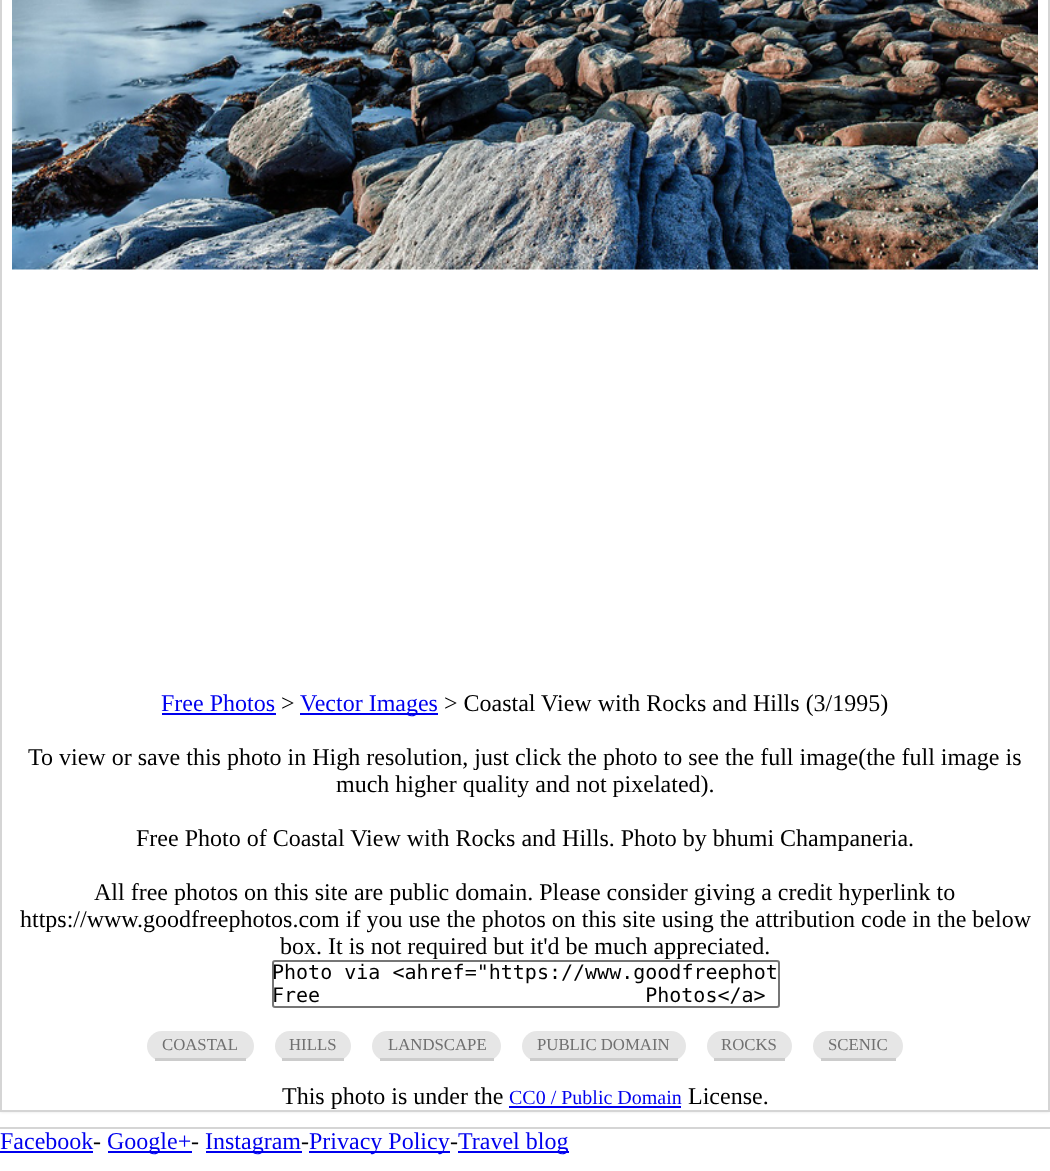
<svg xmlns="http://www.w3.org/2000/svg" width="1050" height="1171">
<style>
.a{font:24px Liberation Serif;fill:#00e}
.b{font:24px Liberation Serif;fill:#000}
.c{font:20px DejaVu Sans Mono;fill:#000}
.d{font:16.75px Liberation Serif;fill:#707070}
.e{font:20px Liberation Serif;fill:#00e}
</style>
<rect width="100%" height="100%" fill="#fff"/>
<path fill="#0000001a" filter="blur(1.5px)" d="M0 -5h1050v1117H0z"/>
<path fill="#fff" stroke="#d5d5d5" stroke-width="2" d="M1 -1h1048v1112H1z"/>
<image href="1.png" x="12" y="0" width="1026" height="270"/>
<path fill="#00e" d="M162 713h114v2H162z"/>
<path fill="#00e" d="M300 713h138v2H300z"/>
<rect fill="none" stroke="#767676" stroke-width="2" x="273" y="961" width="506" height="46" rx="2"/>
<rect fill="#e6e6e6" x="147" y="1031" width="107" height="30" rx="15"/>
<path fill="#ccc" d="M155 1058h91v3H155z"/>
<rect fill="#e6e6e6" x="275" y="1031" width="76" height="30" rx="15"/>
<path fill="#ccc" d="M282 1058h62v3H282z"/>
<rect fill="#e6e6e6" x="372" y="1031" width="129" height="30" rx="15"/>
<path fill="#ccc" d="M380 1058h114v3H380z"/>
<rect fill="#e6e6e6" x="522" y="1031" width="164" height="30" rx="15"/>
<path fill="#ccc" d="M530 1058h148v3H530z"/>
<rect fill="#e6e6e6" x="707" y="1031" width="85" height="30" rx="15"/>
<path fill="#ccc" d="M714 1058h71v3H714z"/>
<rect fill="#e6e6e6" x="813" y="1031" width="90" height="30" rx="15"/>
<path fill="#ccc" d="M821 1058h75v3H821z"/>
<path fill="#00e" d="M509 1106h172v2H509z"/>
<path fill="#d5d5d5" d="M0 1127h1050v2H0z"/>
<path fill="#00e" d="M0 1151h93v2H0z"/>
<path fill="#00e" d="M108 1151h84v2H108z"/>
<path fill="#00e" d="M206 1151h96v2H206z"/>
<path fill="#00e" d="M309 1151h141v2H309z"/>
<path fill="#00e" d="M458 1151h111v2H458z"/>
<text class="a" x="161" y="711">Free Photos</text>
<text class="b" x="281" y="711">&gt;</text>
<text class="a" x="300" y="711">Vector Images</text>
<text class="b" x="444" y="711">&gt; Coastal View with Rocks and Hills (3/1995)</text>
<text class="b" x="28" y="765">To view or save this photo in High resolution, just click the photo to see the full image(the full image is</text>
<text class="b" x="336" y="792">much higher quality and not pixelated).</text>
<text class="b" x="136" y="846">Free Photo of Coastal View with Rocks and Hills. Photo by bhumi Champaneria.</text>
<text class="b" x="94" y="900">All free photos on this site are public domain. Please consider giving a credit hyperlink to</text>
<text class="b" x="20" y="927">https://www.goodfreephotos.com if you use the photos on this site using the attribution code in the below</text>
<text class="b" x="280" y="954">box. It is not required but it'd be much appreciated.</text>
<text class="c" x="272" y="979">Photo via &lt;ahref="https://www.goodfreephot</text>
<text class="c" x="272" y="1002" word-spacing="313">Free Photos&lt;/a&gt;</text>
<text class="d" x="162" y="1050">COASTAL</text>
<text class="d" x="289" y="1050">HILLS</text>
<text class="d" x="388" y="1050">LANDSCAPE</text>
<text class="d" x="537" y="1050">PUBLIC DOMAIN</text>
<text class="d" x="721" y="1050">ROCKS</text>
<text class="d" x="828" y="1050">SCENIC</text>
<text class="b" x="282" y="1104">This photo is under the</text>
<text class="e" x="509" y="1104">CC0 / Public Domain</text>
<text class="b" x="688" y="1104">License.</text>
<text class="a" x="0" y="1149">Facebook</text>
<text class="b" x="93" y="1149">-</text>
<text class="a" x="107" y="1149">Google+</text>
<text class="b" x="191" y="1149">-</text>
<text class="a" x="205" y="1149">Instagram</text>
<text class="b" x="301" y="1149">-</text>
<text class="a" x="309" y="1149">Privacy Policy</text>
<text class="b" x="450" y="1149">-</text>
<text class="a" x="458" y="1149">Travel blog</text>
</svg>
